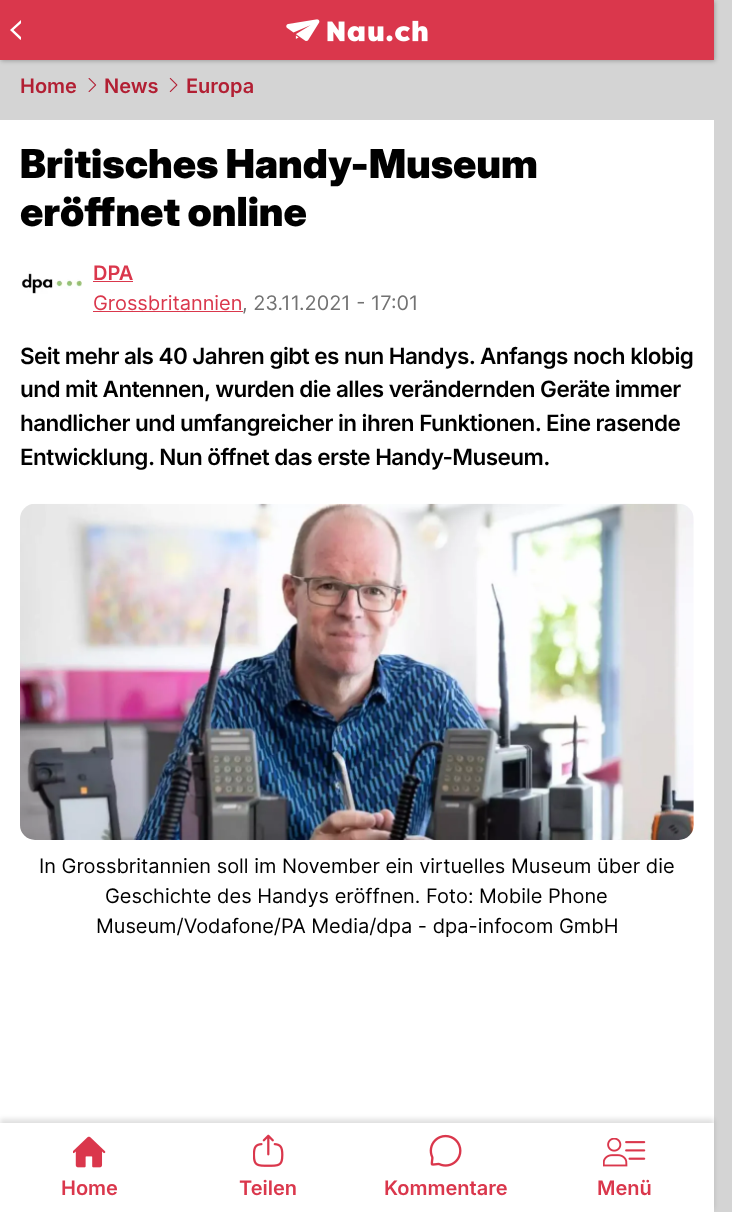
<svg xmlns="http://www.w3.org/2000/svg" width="732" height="1212">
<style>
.a{font:600 20px Inter;fill:#b21f33}
.b{font:900 40px Inter;fill:#000}
.c{font:600 20px Inter;fill:#da374c}
.d{font:20px Inter;fill:#da374c}
.e{font:20px Inter;fill:#727272}
.f{font:600 22.5px Inter;letter-spacing:-0.55px;fill:#000}
.g{font:20px Inter;fill:#000}
</style>
<defs>
<clipPath id="clip1"><path d="M10 20h11v20H10z"/></clipPath>
<clipPath id="clip2"><path d="M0 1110h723v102h-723zm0 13h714v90h-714z" clip-rule="evenodd"/></clipPath>
</defs>
<rect width="100%" height="100%" fill="#d4d4d4"/>
<path fill="#00000040" filter="blur(2px)" d="M1 1h714v60H1z"/>
<path fill="#da374c" d="M0 0h714v60H0z"/>
<g clip-path="url(#clip1)">
<path fill="#fff" d="M22 38l-1.5 2l-10.5-10l11-10l1.5 2l-9 8z"/>
</g>
<image href="1.png" x="286" y="19" width="142" height="23"/>
<image href="2.png" x="88" y="78" width="9" height="14"/>
<image href="3.png" x="169" y="77" width="9" height="16"/>
<path fill="#fff" d="M0 120h714v1092H0z"/>
<image href="4.png" x="21" y="271" width="61" height="23"/>
<path fill="#da374c" d="M93 281h40v1H93z"/>
<path fill="#da374c" d="M93 311h150v1H93z"/>
<image href="5.png" x="20" y="503" width="674" height="337"/>
<g clip-path="url(#clip2)">
<path fill="#0000001f" filter="blur(2.5px)" d="M0 1119h714v90H0z"/>
</g>
<path fill="#ffffffcc" d="M713 1123h1v85H713z"/>
<image href="6.png" x="73" y="1136" width="33" height="32"/>
<image href="7.png" x="253" y="1134" width="31" height="33"/>
<image href="8.png" x="429" y="1134" width="33" height="33"/>
<image href="9.png" x="603" y="1138" width="43" height="29"/>
<text class="a" x="20" y="93">Home</text>
<text class="a" x="104" y="93">News</text>
<text class="a" x="186" y="93">Europa</text>
<text class="b" x="20" y="178">Britisches Handy-Museum</text>
<text class="b" x="20" y="226">eröffnet online</text>
<text class="c" x="93" y="280">DPA</text>
<text class="d" x="93" y="310">Grossbritannien</text>
<text class="e" x="242" y="310">, 23.11.2021 - 17:01</text>
<text class="f" x="20" y="364">Seit mehr als 40 Jahren gibt es nun Handys. Anfangs noch klobig</text>
<text class="f" x="20" y="397">und mit Antennen, wurden die alles verändernden Geräte immer</text>
<text class="f" x="20" y="431">handlicher und umfangreicher in ihren Funktionen. Eine rasende</text>
<text class="f" x="20" y="465">Entwicklung. Nun öffnet das erste Handy-Museum.</text>
<text class="g" x="39" y="873">In Grossbritannien soll im November ein virtuelles Museum über die</text>
<text class="g" x="105" y="903">Geschichte des Handys eröffnen. Foto: Mobile Phone</text>
<text class="g" x="96" y="933">Museum/Vodafone/PA Media/dpa - dpa-infocom GmbH</text>
<text class="c" x="61" y="1195">Home</text>
<text class="c" x="239" y="1195">Teilen</text>
<text class="c" x="384" y="1195">Kommentare</text>
<text class="c" x="597" y="1195">Menü</text>
</svg>
